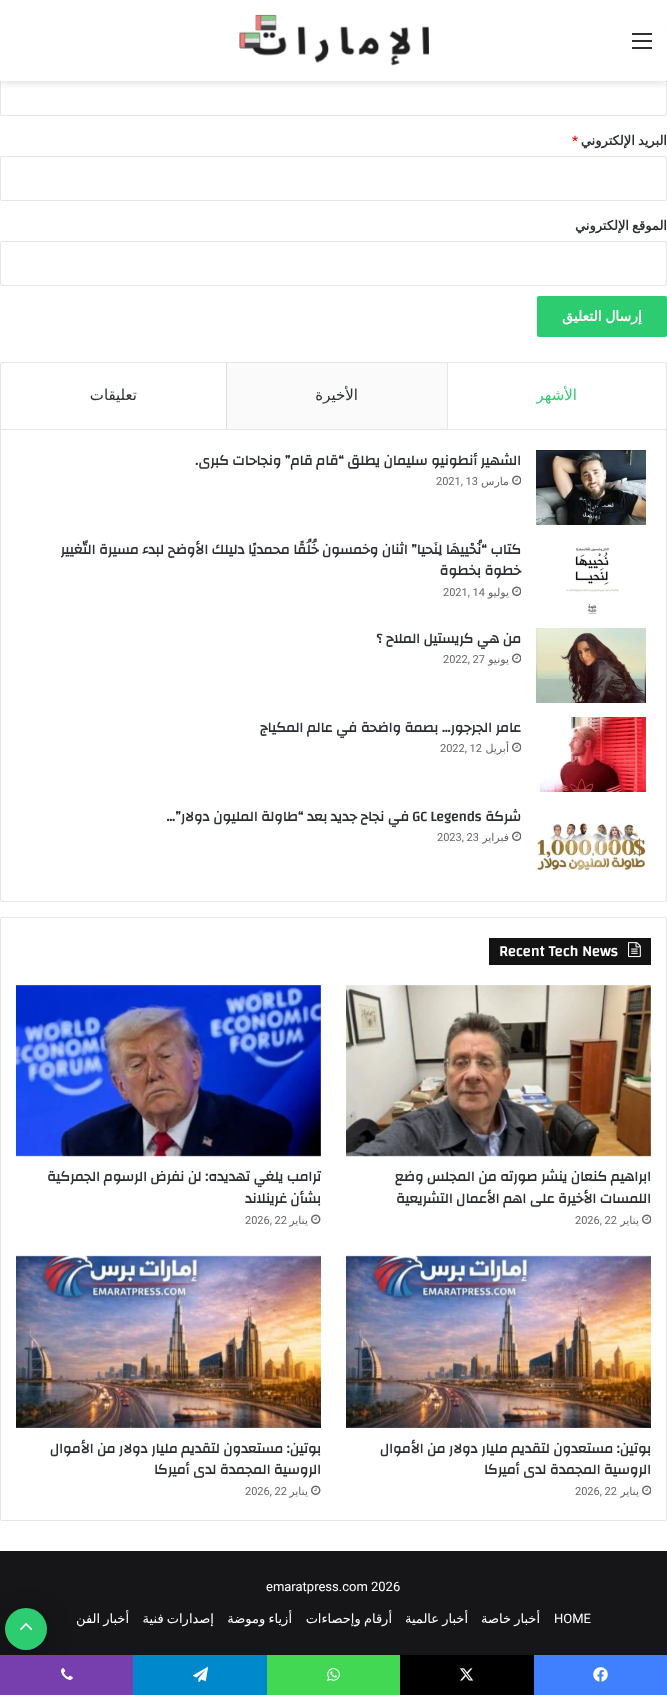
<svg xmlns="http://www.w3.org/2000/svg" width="667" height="1695">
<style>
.a{font:bold 13px DejaVu Sans;direction:rtl;fill:#2c2f34}
.b{font:bold 13px Roboto;fill:#f00}
.c{font:bold 14px DejaVu Sans;direction:rtl;fill:#fff}
.d{font:15px DejaVu Sans;direction:rtl;fill:#2ecc71}
.e{font:15px DejaVu Sans;direction:rtl;fill:#2c2f34}
.f{font:bold 14px Changa;direction:rtl;fill:#2c2f34}
.g{font:11px DejaVu Sans;direction:rtl;fill:#666}
.h{font:11px Roboto;fill:#666}
.i{font:bold 14px Changa;fill:#2c2f34}
.j{font:bold 15px Changa;fill:#fff}
.k{font:13px Roboto;fill:#fff}
.l{font:13px DejaVu Sans;direction:rtl;fill:#fff}
</style>
<defs>
<clipPath id="clip1"><path d="M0 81h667v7H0z"/></clipPath>
</defs>
<rect width="100%" height="100%" fill="#fff"/>
<rect fill="none" stroke="#e6e6e6" x="0.5" y="-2.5" width="666" height="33" rx="1.5"/>
<rect fill="none" stroke="#e6e6e6" x="0.5" y="71.5" width="666" height="44" rx="1.5"/>
<g clip-path="url(#clip1)">
<path fill="#63636333" filter="blur(4px)" d="M0 2h667v81H0z"/>
</g>
<path fill="#fffffff2" d="M0 0h667v81H0z"/>
<path fill="#2c2f34" d="M632 40h20v2H632z"/>
<path fill="#2c2f34" d="M632 33h20v2H632z"/>
<path fill="#2c2f34" d="M632 47h20v2H632z"/>
<image href="1.png" x="239" y="14" width="190" height="52"/>
<rect fill="none" stroke="#e6e6e6" x="0.5" y="156.5" width="666" height="44" rx="1.5"/>
<rect fill="none" stroke="#e6e6e6" x="0.5" y="241.5" width="666" height="44" rx="1.5"/>
<rect fill="#2ecc71" x="537" y="296" width="130" height="41" rx="2"/>
<rect fill="none" stroke="#e5e5e5" x="0.5" y="362.5" width="666" height="539" rx="1.5"/>
<path fill="#e6e6e6" d="M1 429h665v1H1z"/>
<path fill="#e6e6e6" d="M447 429v-66h1v65z"/>
<path fill="#fafafa" d="M226 363h221v66H226z"/>
<path fill="#e1e1e1" d="M226 429v-66h1v65z"/>
<image href="2.png" x="536" y="450" width="110" height="75"/>
<image href="3.png" x="512" y="475" width="9" height="10"/>
<image href="4.png" x="566" y="547" width="53" height="67"/>
<image href="3.png" x="512" y="586" width="9" height="10"/>
<image href="5.png" x="536" y="628" width="110" height="75"/>
<image href="3.png" x="512" y="653" width="9" height="10"/>
<image href="6.png" x="536" y="717" width="110" height="75"/>
<image href="3.png" x="512" y="742" width="9" height="10"/>
<image href="7.png" x="536" y="822" width="110" height="49"/>
<image href="3.png" x="512" y="831" width="9" height="10"/>
<rect fill="none" stroke="#e5e5e5" x="0.5" y="917.5" width="666" height="603" rx="1.5"/>
<path fill="#131313" d="M489 938h162v27H489z"/>
<image href="8.png" x="628" y="942" width="13" height="16"/>
<image href="9.png" x="346" y="985" width="305" height="172"/>
<image href="3.png" x="642" y="1214" width="9" height="10"/>
<image href="10.png" x="16" y="985" width="305" height="172"/>
<image href="11.png" x="311" y="1214" width="10" height="10"/>
<image href="12.png" x="346" y="1255" width="305" height="173"/>
<image href="3.png" x="642" y="1485" width="9" height="10"/>
<image href="13.png" x="16" y="1255" width="305" height="173"/>
<image href="11.png" x="311" y="1485" width="10" height="10"/>
<path fill="#161619" d="M0 1551h667v104H0z"/>
<rect fill="#0000004d" filter="blur(12.5px)" x="5" y="1613" width="42" height="42" rx="21"/>
<circle fill="#2ecc71" cx="26" cy="1629" r="21"/>
<image href="14.png" x="20" y="1623" width="13" height="8"/>
<path fill="#4080ff" d="M534 1655h133v40H534z"/>
<image href="15.png" x="593" y="1667" width="15" height="15"/>
<path fill="#000" d="M400 1655h134v40H400z"/>
<image href="16.png" x="459" y="1668" width="15" height="13"/>
<path fill="#43d854" d="M267 1655h133v40H267z"/>
<image href="17.png" x="327" y="1668" width="13" height="13"/>
<path fill="#08c" d="M133 1655h134v40H133z"/>
<image href="18.png" x="193" y="1667" width="15" height="15"/>
<path fill="#773ead" d="M0 1655h133v40H0z"/>
<image href="19.png" x="61" y="1668" width="12" height="12"/>
<text class="a" x="667" y="145" word-spacing="-1">البريد الإلكتروني</text>
<text class="b" x="572" y="145">*</text>
<text class="a" x="667" y="230" word-spacing="-1">الموقع الإلكتروني</text>
<text class="c" x="642" y="321" word-spacing="-1">إرسال التعليق</text>
<text class="d" x="577" y="400">الأشهر</text>
<text class="e" x="358" y="400">الأخيرة</text>
<text class="e" x="137" y="400">تعليقات</text>
<text class="f" x="521" y="465">الشهير أنطونيو سليمان يطلق “قام قام” ونجاحات كبرى.</text>
<text class="g" x="509" y="485">مارس</text>
<text class="h" x="436" y="485">2021, 13</text>
<text class="f" x="521" y="554">كتاب “نُحْييهَا لِنَحيا” اثنان وخمسون خُلُقًا محمديًا دليلك الأوضح لبدء مسيرة التّغيير</text>
<text class="f" x="521" y="575">خطوة بخطوة</text>
<text class="g" x="509" y="596">يوليو</text>
<text class="h" x="443" y="596">2021, 14</text>
<text class="f" x="521" y="643">من هي كريستيل الملاح ؟</text>
<text class="g" x="509" y="663">يونيو</text>
<text class="h" x="443" y="663">2022, 27</text>
<text class="f" x="521" y="732">عامر الجرجور… بصمة واضحة في عالم المكياج</text>
<text class="g" x="509" y="752">أبريل</text>
<text class="h" x="440" y="752">2022, 12</text>
<text class="f" x="521" y="821">شركة</text>
<text class="i" x="412" y="821">GC Legends</text>
<text class="f" x="409" y="821">في نجاح جديد بعد “طاولة المليون دولار”…</text>
<text class="g" x="509" y="841">فبراير</text>
<text class="h" x="437" y="841">2023, 23</text>
<text class="j" x="499" y="956">Recent Tech News</text>
<text class="f" x="651" y="1181">ابراهيم كنعان ينشر صورته من المجلس وضع</text>
<text class="f" x="651" y="1203">اللمسات الأخيرة على اهم الأعمال التشريعية</text>
<text class="g" x="639" y="1224">يناير</text>
<text class="h" x="575" y="1224">2026, 22</text>
<text class="f" x="321" y="1181">ترامب يلغي تهديده: لن نفرض الرسوم الجمركية</text>
<text class="f" x="321" y="1203">بشأن غرينلاند</text>
<text class="g" x="308" y="1224">يناير</text>
<text class="h" x="245" y="1224">2026, 22</text>
<text class="f" x="651" y="1453">بوتين: مستعدون لتقديم مليار دولار من الأموال</text>
<text class="f" x="651" y="1474">الروسية المجمدة لدى أميركا</text>
<text class="g" x="639" y="1495">يناير</text>
<text class="h" x="575" y="1495">2026, 22</text>
<text class="f" x="321" y="1453">بوتين: مستعدون لتقديم مليار دولار من الأموال</text>
<text class="f" x="321" y="1474">الروسية المجمدة لدى أميركا</text>
<text class="g" x="308" y="1495">يناير</text>
<text class="h" x="245" y="1495">2026, 22</text>
<text class="k" x="266" y="1591">emaratpress.com 2026</text>
<text class="k" x="554" y="1623">HOME</text>
<text class="l" x="540" y="1623" word-spacing="-1">أخبار خاصة</text>
<text class="l" x="468" y="1623" word-spacing="-1">أخبار عالمية</text>
<text class="l" x="392" y="1623" word-spacing="-1">أرقام وإحصاءات</text>
<text class="l" x="292" y="1623" word-spacing="-1">أزياء وموضة</text>
<text class="l" x="214" y="1623" word-spacing="-1">إصدارات فنية</text>
<text class="l" x="129" y="1623" word-spacing="-1">أخبار الفن</text>
</svg>
